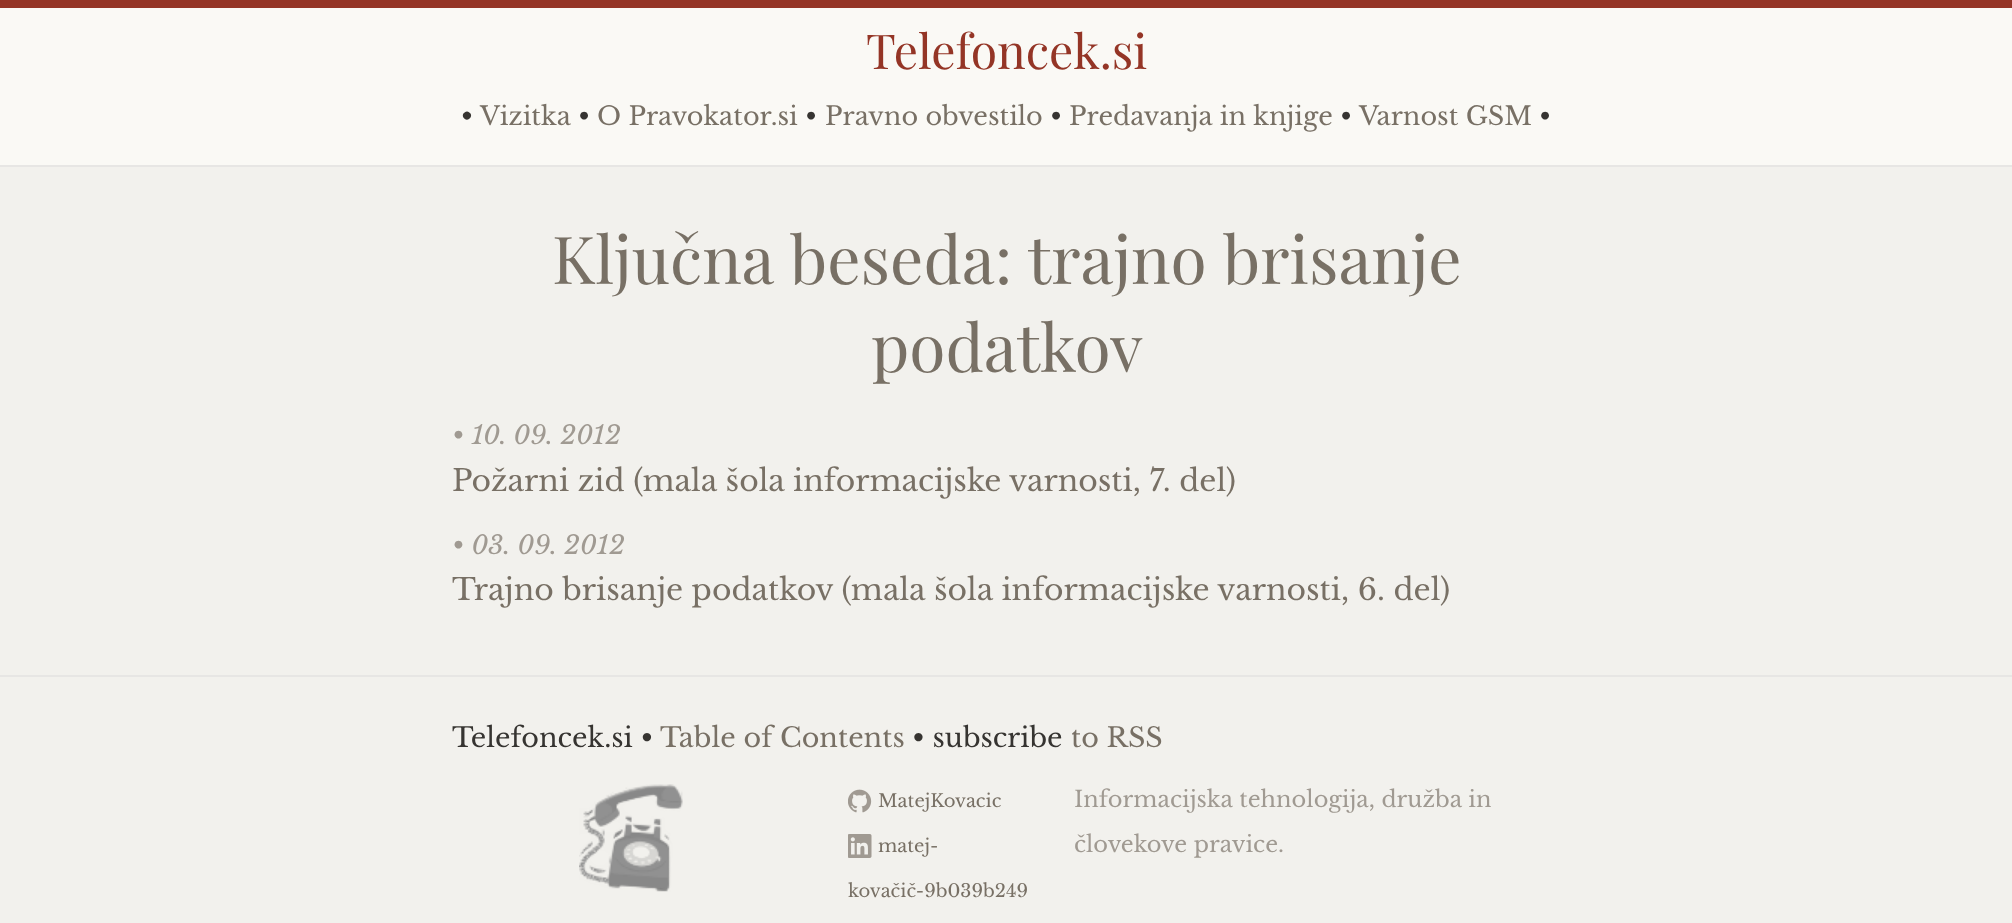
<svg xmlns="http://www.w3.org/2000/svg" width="2012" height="923">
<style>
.a{font:48px Playfair Display;fill:#943526}
.b{font:bold 25.5px Libre Baskerville;fill:#363431}
.c{font:25.5px Libre Baskerville;fill:#787065}
.d{font:25.5px Libre Baskerville;fill:#363431}
.e{font:66px Playfair Display;fill:#787065}
.f{font:italic 25.5px Libre Baskerville;fill:#a09a92}
.g{font:29.85px Libre Baskerville;fill:#787065}
.h{font:27px Libre Baskerville;fill:#363431}
.i{font:27px Libre Baskerville;fill:#787065}
.j{font:18px Libre Baskerville;fill:#787065}
.k{font:22.5px Libre Baskerville;fill:#a09a92}
</style>
<rect width="100%" height="100%" fill="#f2f1ed"/>
<path fill="#faf9f5" d="M0 8h2012v157H0z"/>
<path fill="#943526" d="M0 0h2012v8H0z"/>
<path fill="#e7e6e4" d="M0 165h2012v2H0z"/>
<path fill="#e7e6e4" d="M0 675h2012v2H0z"/>
<image href="1.png" x="579" y="784" width="104" height="108"/>
<image href="2.png" x="848" y="789" width="24" height="24"/>
<image href="3.png" x="848" y="834" width="24" height="24"/>
<text class="a" x="866" y="69">Telefoncek.si</text>
<text class="b" x="461" y="125">•</text>
<text class="c" x="480" y="125">Vizitka</text>
<text class="d" x="578" y="125">•</text>
<text class="c" x="597" y="125">O Pravokator.si</text>
<text class="d" x="805" y="125">•</text>
<text class="c" x="825" y="125">Pravno obvestilo</text>
<text class="d" x="1050" y="125">•</text>
<text class="c" x="1069" y="125">Predavanja in knjige</text>
<text class="d" x="1340" y="125">•</text>
<text class="c" x="1359" y="125">Varnost GSM</text>
<text class="d" x="1539" y="125">•</text>
<text class="e" x="552" y="284">Ključna beseda: trajno brisanje</text>
<text class="e" x="871" y="372">podatkov</text>
<text class="f" x="452" y="444">• 10. 09. 2012</text>
<text class="g" x="452" y="491">Požarni zid (mala šola informacijske varnosti, 7. del)</text>
<text class="f" x="452" y="554">• 03. 09. 2012</text>
<text class="g" x="452" y="600">Trajno brisanje podatkov (mala šola informacijske varnosti, 6. del)</text>
<text class="h" x="452" y="747">Telefoncek.si •</text>
<text class="i" x="660" y="747">Table of Contents</text>
<text class="h" x="912" y="747">• subscribe</text>
<text class="i" x="1071" y="747">to RSS</text>
<text class="j" x="878" y="807">MatejKovacic</text>
<text class="j" x="878" y="852">matej-</text>
<text class="j" x="848" y="897">kovačič-9b039b249</text>
<text class="k" x="1074" y="807">Informacijska tehnologija, družba in</text>
<text class="k" x="1074" y="852">človekove pravice.</text>
</svg>
